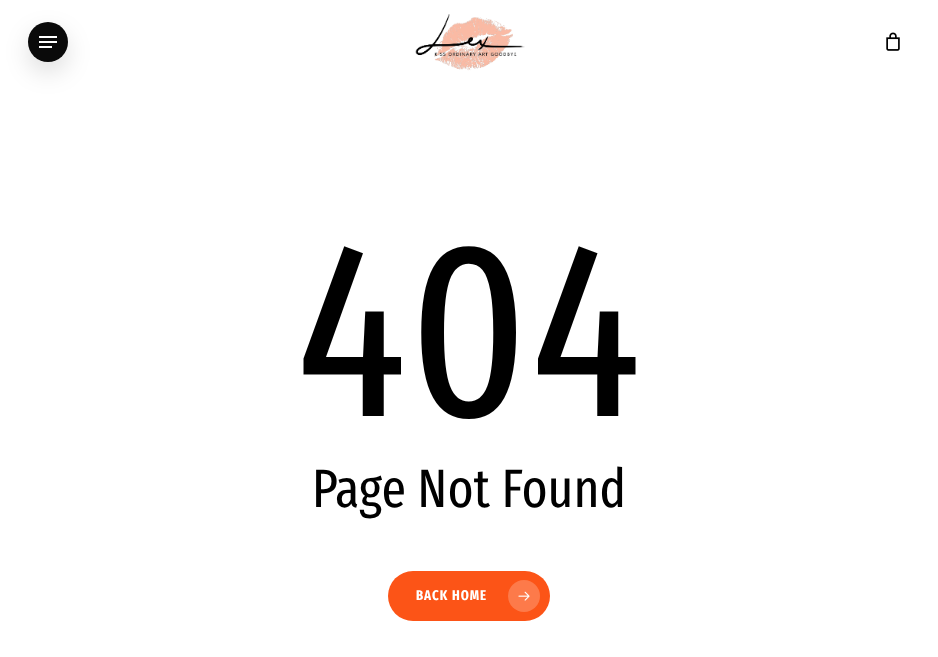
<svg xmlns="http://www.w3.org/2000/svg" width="938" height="657">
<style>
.a{font:250px Fira Sans Extra Condensed;letter-spacing:1px;fill:#000}
.b{font:54px Fira Sans Extra Condensed;fill:#000}
.c{font:bold 14px Fira Sans Extra Condensed;letter-spacing:1px;fill:#fff}
</style>
<rect width="100%" height="100%" fill="#fff"/>
<rect fill="#00000021" filter="blur(12.5px)" x="28" y="32" width="40" height="40" rx="20"/>
<circle fill="#0a0a0a" cx="48" cy="42" r="20"/>
<path fill="#fff" d="M39 36h18v2H39z"/>
<path fill="#fff" d="M39 46h13v2H39z"/>
<path fill="#fff" d="M39 41h18v2H39z"/>
<image href="1.png" x="886" y="32" width="14" height="19"/>
<image href="2.png" x="415" y="14" width="110" height="57"/>
<rect fill="#fc5417" x="388" y="571" width="162" height="50" rx="25"/>
<circle fill="#fd7a4a" cx="524" cy="596" r="16"/>
<image href="3.png" x="518" y="591" width="12" height="10"/>
<text class="a" x="296" y="416">404</text>
<text class="b" x="312" y="507">Page Not Found</text>
<text class="c" x="416" y="600">BACK HOME</text>
</svg>
